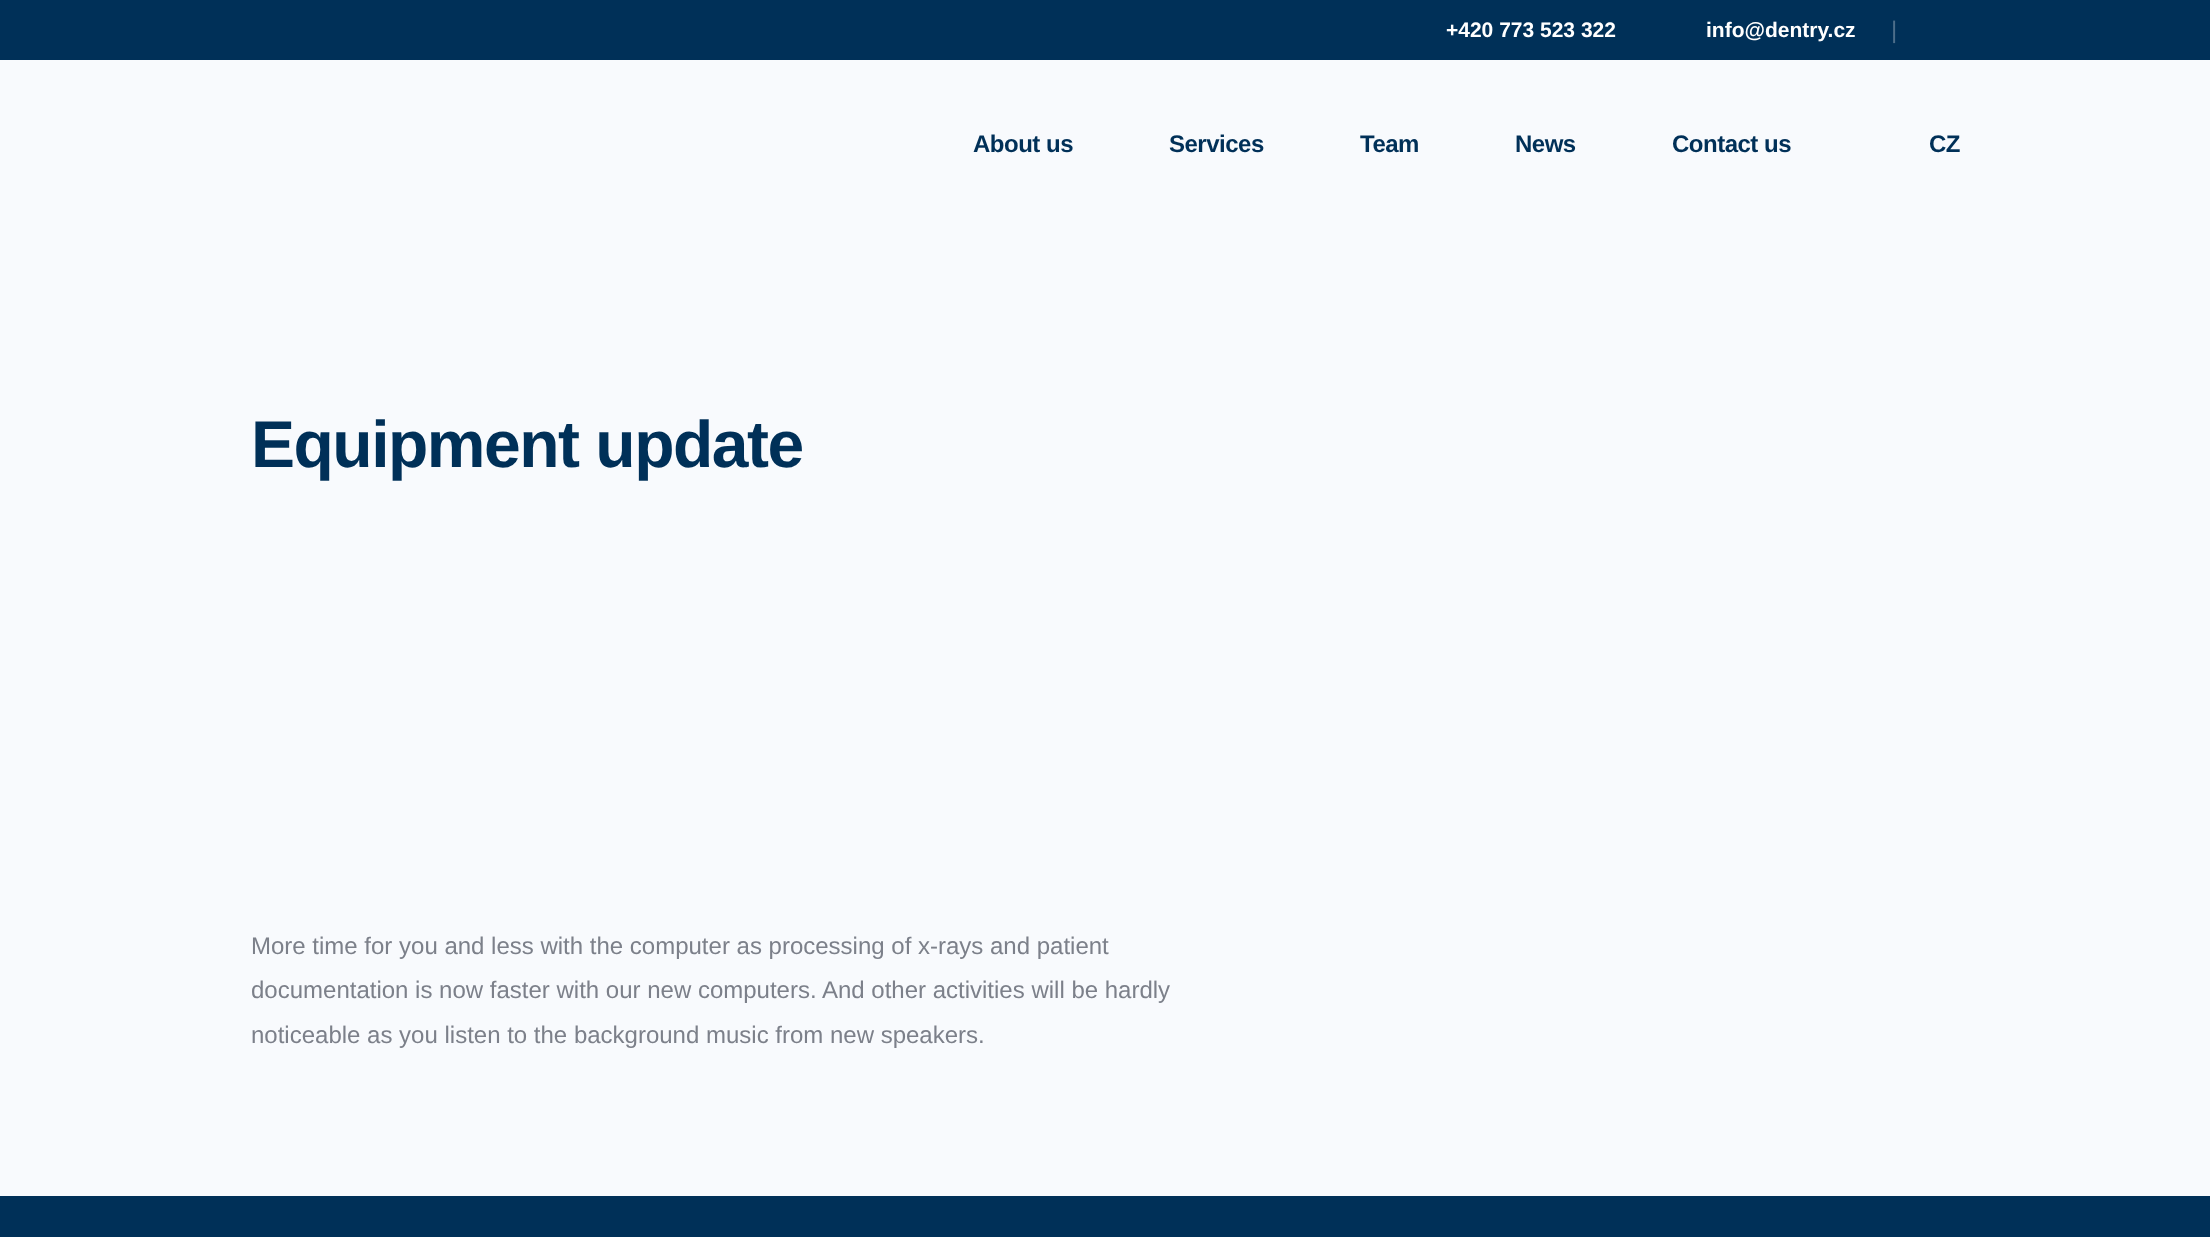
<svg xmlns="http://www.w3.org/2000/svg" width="2210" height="1237">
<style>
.a{font:bold 21px Liberation Sans;fill:#fff}
.b{font:24px Liberation Sans;fill:#4d6e8a}
.c{font:bold 24px Liberation Sans;letter-spacing:-0.5px;fill:#003058}
.d{font:bold 66px Liberation Sans;letter-spacing:-1.5px;fill:#003058}
.e{font:24px Liberation Sans;fill:#7c808a}
</style>
<rect width="100%" height="100%" fill="#f8fafd"/>
<path fill="#003058" d="M0 0h2210v60H0z"/>
<path fill="#003058" d="M0 1196h2210v41H0z"/>
<text class="a" x="1446" y="37">+420 773 523 322</text>
<text class="a" x="1706" y="37">info@dentry.cz</text>
<text class="b" x="1891" y="38">|</text>
<text class="c" x="973" y="152">About us</text>
<text class="c" x="1169" y="152">Services</text>
<text class="c" x="1360" y="152">Team</text>
<text class="c" x="1515" y="152">News</text>
<text class="c" x="1672" y="152">Contact us</text>
<text class="c" x="1929" y="152">CZ</text>
<text class="d" x="251" y="467">Equipment update</text>
<text class="e" x="251" y="954">More time for you and less with the computer as processing of x-rays and patient</text>
<text class="e" x="251" y="998">documentation is now faster with our new computers. And other activities will be hardly</text>
<text class="e" x="251" y="1043">noticeable as you listen to the background music from new speakers.</text>
</svg>
